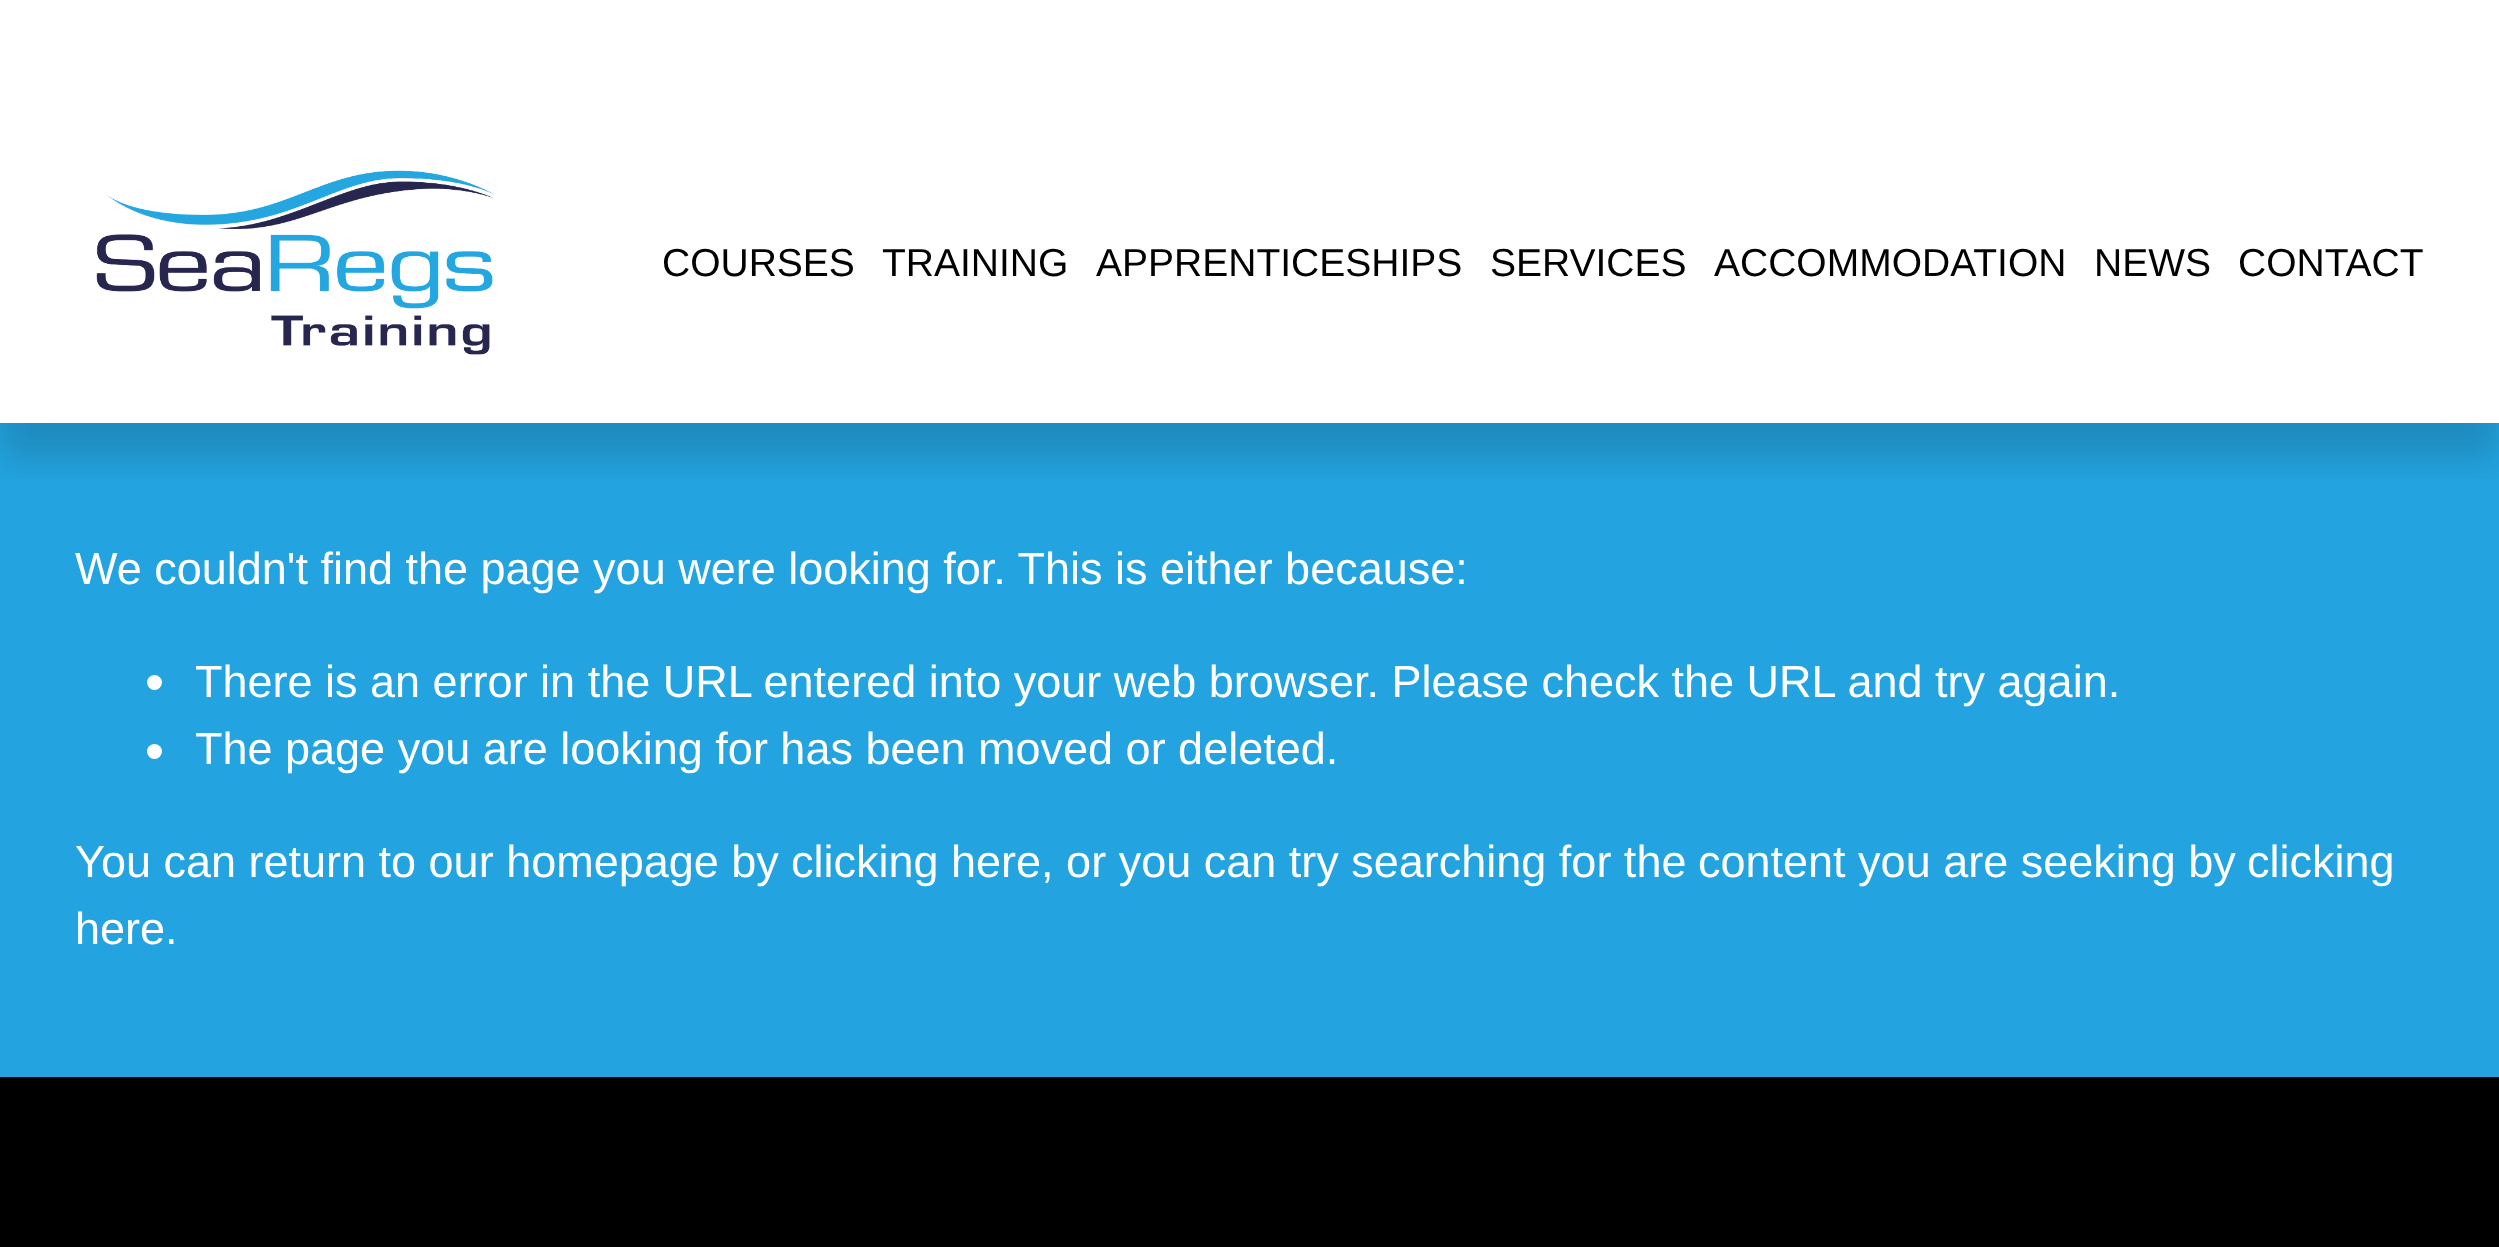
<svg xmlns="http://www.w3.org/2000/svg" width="2499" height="1247">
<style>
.a{font:39px Liberation Sans;fill:#000}
.b{font:45px Liberation Sans;fill:#fff}
</style>
<defs>
<clipPath id="clip1"><path d="M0 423h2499v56H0z"/></clipPath>
</defs>
<rect width="100%" height="100%" fill="#23a4e0"/>
<path fill="#fff" d="M0 0h2499v423H0z"/>
<g clip-path="url(#clip1)">
<path fill="#00000026" filter="blur(18px)" d="M0 138h2499v321H0z"/>
</g>
<image href="1.png" x="96" y="170" width="398" height="185"/>
<circle fill="#fff" cx="154.5" cy="682.5" r="7.5"/>
<circle fill="#fff" cx="154.5" cy="751.5" r="7.5"/>
<path fill="#000" d="M0 1077h2499v170H0z"/>
<text class="a" x="662" y="276">COURSES</text>
<text class="a" x="882" y="276">TRAINING</text>
<text class="a" x="1096" y="276">APPRENTICESHIPS</text>
<text class="a" x="1490" y="276">SERVICES</text>
<text class="a" x="1714" y="276">ACCOMMODATION</text>
<text class="a" x="2094" y="276">NEWS</text>
<text class="a" x="2238" y="276">CONTACT</text>
<text class="b" x="75" y="584">We couldn't find the page you were looking for. This is either because:</text>
<text class="b" x="195" y="697">There is an error in the URL entered into your web browser. Please check the URL and try again.</text>
<text class="b" x="195" y="764">The page you are looking for has been moved or deleted.</text>
<text class="b" x="75" y="877">You can return to our homepage by</text>
<text class="b" x="791" y="877">clicking here, or you can try searching for the</text>
<text class="b" x="1698" y="877">content you are seeking by</text>
<text class="b" x="2247" y="877">clicking</text>
<text class="b" x="75" y="944">here.</text>
</svg>
